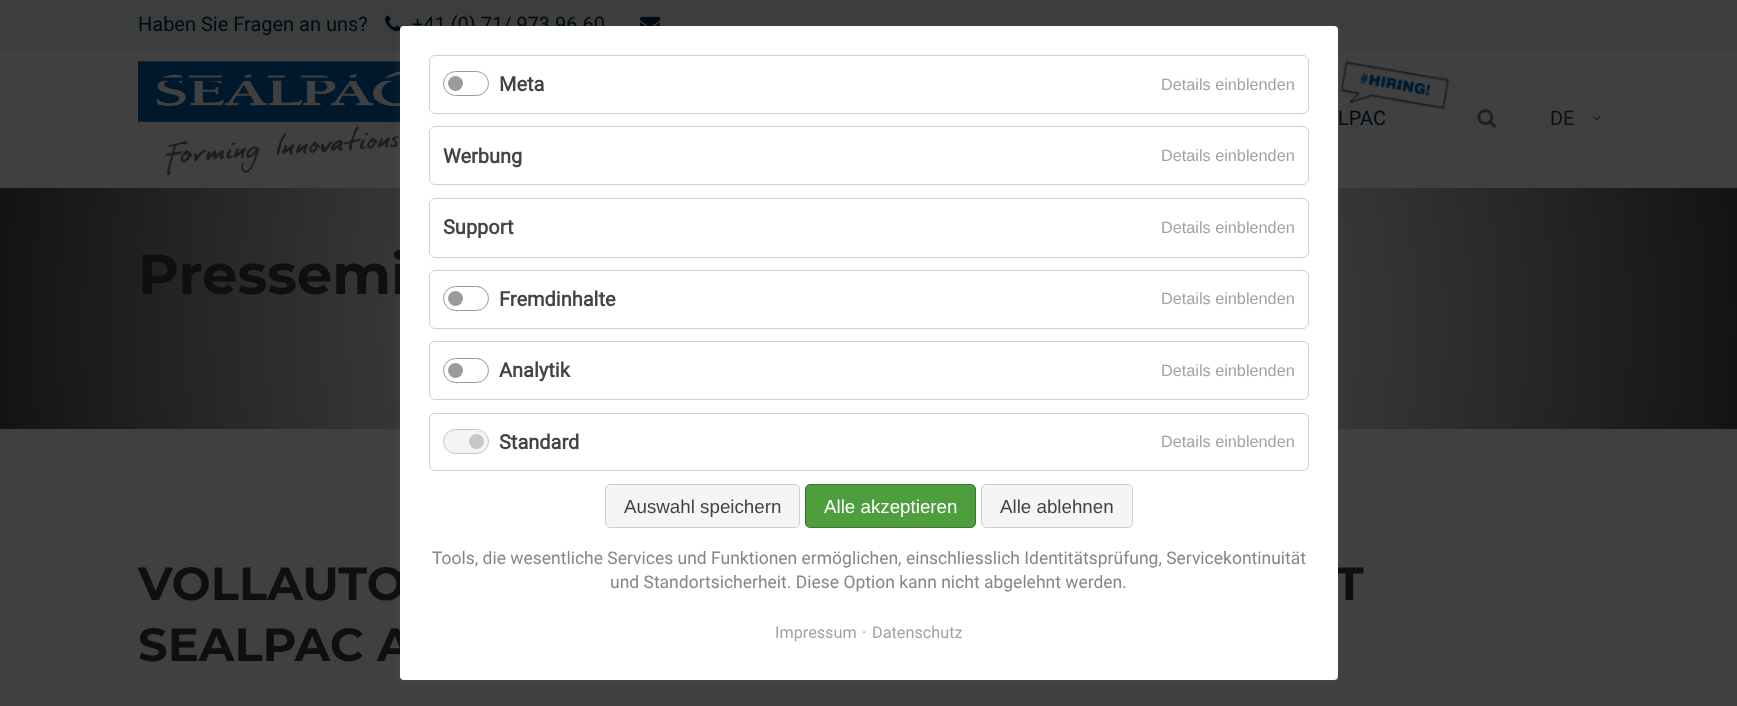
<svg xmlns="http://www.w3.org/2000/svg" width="1737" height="706">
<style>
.a{font:20px Roboto;fill:#000a12}
.b{font:20px Roboto;fill:#0f0f11}
.c{font:bold 56px Montserrat;fill:#0f0f11}
.d{font:bold 46.5px Montserrat;fill:#0f0f11}
.e{font:bold 20px Roboto;fill:#444}
.f{font:16.25px Liberation Sans;fill:#a2a2a2}
.g{font:18.75px Liberation Sans;fill:#444}
.h{font:18.75px Liberation Sans;fill:#fff}
.i{font:17.5px Roboto;fill:#868686}
.j{font:16.25px Roboto;fill:#a2a2a2}
</style>
<defs>
<radialGradient id="g1" gradientUnits="userSpaceOnUse" cx="869" cy="324" r="944"><stop offset="0" stop-color="#404040"/><stop offset="0.19" stop-color="#3e3e3d"/><stop offset="0.46" stop-color="#393938"/><stop offset="0.54" stop-color="#343433"/><stop offset="0.71" stop-color="#262626"/><stop offset="0.95" stop-color="#111"/><stop offset="1" stop-color="#0d0d0c"/></radialGradient>
</defs>
<rect width="100%" height="100%" fill="#404040"/>
<path fill="#3c3d3d" d="M0 0h1737v50H0z"/>
<image href="1.png" x="385" y="15" width="16" height="17"/>
<image href="2.png" x="640" y="16" width="20" height="10"/>
<image href="3.png" x="138" y="61" width="262" height="115"/>
<image href="4.png" x="1340" y="61" width="110" height="49"/>
<image href="5.png" x="1477" y="109" width="19" height="19"/>
<image href="6.png" x="1593" y="116" width="7" height="5"/>
<path fill="url(#g1)" d="M0 188h1737v241H0z"/>
<rect fill="#63636333" filter="blur(5px)" x="400" y="29" width="938" height="654" rx="4"/>
<text class="a" x="138" y="31">Haben Sie Fragen an uns?</text>
<text class="a" x="412" y="31">+41 (0) 71/ 973 96 60</text>
<text class="a" x="1338" y="125">LPAC</text>
<text class="b" x="1550" y="125">DE</text>
<text class="c" x="138" y="294">Pressemi</text>
<text class="d" x="138" y="600">VOLLAUTO</text>
<text class="d" x="1335" y="600">T</text>
<text class="d" x="138" y="661">SEALPAC A</text>
<rect fill="#fff" x="400" y="26" width="938" height="654" rx="4"/>
<rect fill="none" stroke="#d0d0d0" x="429.5" y="55.5" width="879" height="58" rx="5.5"/>
<rect fill="none" stroke="#9c9b99" x="443.5" y="71.5" width="45" height="24" rx="12"/>
<circle fill="#9c9b99" cx="455.5" cy="83.5" r="7.5"/>
<text class="e" x="499" y="91">Meta</text>
<text class="f" x="1161" y="90">Details einblenden</text>
<rect fill="none" stroke="#d0d0d0" x="429.5" y="126.5" width="879" height="58" rx="5.5"/>
<text class="e" x="443" y="163">Werbung</text>
<text class="f" x="1161" y="161">Details einblenden</text>
<rect fill="none" stroke="#d0d0d0" x="429.5" y="198.5" width="879" height="59" rx="5.5"/>
<text class="e" x="443" y="234">Support</text>
<text class="f" x="1161" y="233">Details einblenden</text>
<rect fill="none" stroke="#d0d0d0" x="429.5" y="270.5" width="879" height="58" rx="5.5"/>
<rect fill="none" stroke="#9c9b99" x="443.5" y="286.5" width="45" height="24" rx="12"/>
<circle fill="#9c9b99" cx="455.5" cy="298.5" r="7.5"/>
<text class="e" x="499" y="306">Fremdinhalte</text>
<text class="f" x="1161" y="304">Details einblenden</text>
<rect fill="none" stroke="#d0d0d0" x="429.5" y="341.5" width="879" height="58" rx="5.5"/>
<rect fill="none" stroke="#9c9b99" x="443.5" y="358.5" width="45" height="24" rx="12"/>
<text class="e" x="499" y="377">Analytik</text>
<circle fill="#9c9b99" cx="455.5" cy="370.5" r="7.5"/>
<text class="f" x="1161" y="376">Details einblenden</text>
<rect fill="none" stroke="#d0d0d0" x="429.5" y="413.5" width="879" height="57" rx="5.5"/>
<rect fill="#f4f4f4" stroke="#c8c7c5" x="443.5" y="429.5" width="45" height="24" rx="12"/>
<circle fill="#c8c7c5" cx="476.5" cy="441.5" r="7.5"/>
<text class="e" x="499" y="449">Standard</text>
<text class="f" x="1161" y="447">Details einblenden</text>
<rect fill="#f5f5f5" stroke="#cfcfcf" x="605.5" y="484.5" width="194" height="43" rx="4.5"/>
<text class="g" x="624" y="513">Auswahl speichern</text>
<rect fill="#4e9e3e" stroke="#3e7830" x="805.5" y="484.5" width="170" height="43" rx="4.5"/>
<text class="h" x="824" y="513">Alle akzeptieren</text>
<rect fill="#f5f5f5" stroke="#cfcfcf" x="981.5" y="484.5" width="151" height="43" rx="4.5"/>
<text class="g" x="1000" y="513">Alle ablehnen</text>
<text class="i" x="432" y="564">Tools, die wesentliche Services und Funktionen ermöglichen, einschliesslich Identitätsprüfung, Servicekontinuität</text>
<text class="i" x="610" y="588">und Standortsicherheit. Diese Option kann nicht abgelehnt werden.</text>
<text class="j" x="775" y="638">Impressum</text>
<text class="j" x="862" y="638">·</text>
<text class="j" x="872" y="638">Datenschutz</text>
</svg>
